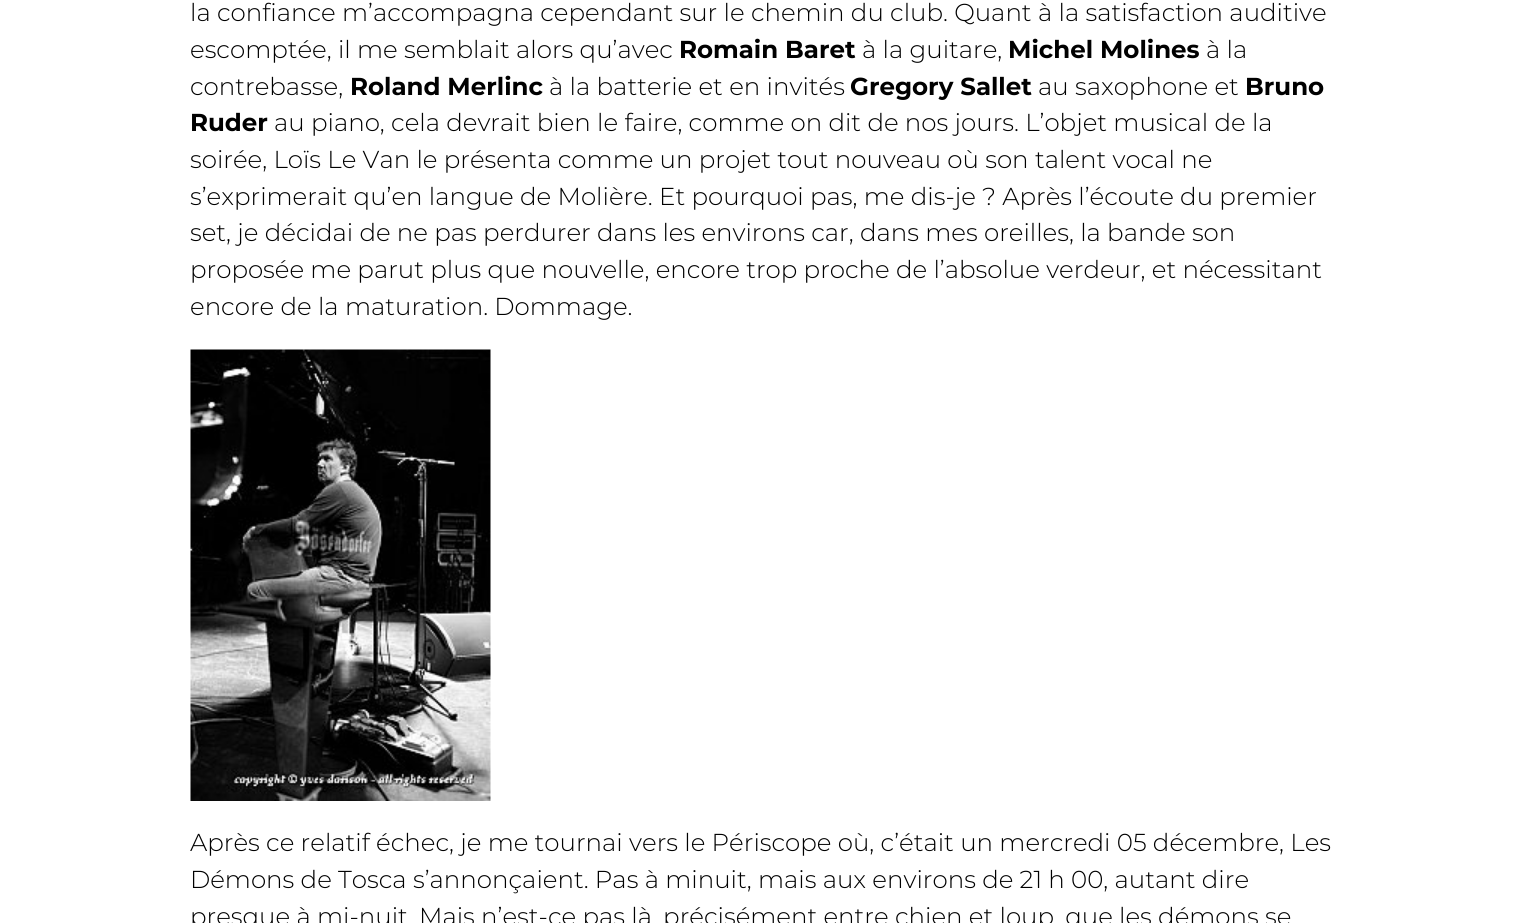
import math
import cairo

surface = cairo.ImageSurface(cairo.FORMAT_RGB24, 1536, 923)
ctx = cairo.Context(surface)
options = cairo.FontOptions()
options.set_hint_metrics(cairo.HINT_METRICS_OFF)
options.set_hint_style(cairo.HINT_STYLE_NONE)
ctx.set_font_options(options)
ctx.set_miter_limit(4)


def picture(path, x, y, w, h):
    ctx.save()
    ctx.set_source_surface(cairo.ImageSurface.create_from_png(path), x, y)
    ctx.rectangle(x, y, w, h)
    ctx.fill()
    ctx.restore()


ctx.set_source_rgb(1, 1, 1)
ctx.paint()
ctx.select_font_face("Montserrat Light")
ctx.set_font_size(24.5)
ctx.set_source_rgb(0, 0, 0)
ctx.move_to(190, 21)
ctx.show_text("la confiance m’accompagna cependant sur le chemin du club. Quant à la satisfaction auditive")
ctx.move_to(190, 58)
ctx.show_text("escomptée, il me semblait alors qu’avec")
ctx.select_font_face("Montserrat", cairo.FONT_SLANT_NORMAL, cairo.FONT_WEIGHT_BOLD)
ctx.move_to(679, 58)
ctx.show_text("Romain Baret")
ctx.select_font_face("Montserrat Light")
ctx.move_to(862, 58)
ctx.show_text("à la guitare,")
ctx.select_font_face("Montserrat", cairo.FONT_SLANT_NORMAL, cairo.FONT_WEIGHT_BOLD)
ctx.move_to(1008, 58)
ctx.show_text("Michel Molines")
ctx.select_font_face("Montserrat Light")
ctx.move_to(1206, 58)
ctx.show_text("à la")
ctx.move_to(190, 95)
ctx.show_text("contrebasse,")
ctx.select_font_face("Montserrat", cairo.FONT_SLANT_NORMAL, cairo.FONT_WEIGHT_BOLD)
ctx.move_to(350, 95)
ctx.show_text("Roland Merlinc")
ctx.select_font_face("Montserrat Light")
ctx.move_to(549, 95)
ctx.show_text("à la batterie et en invités")
ctx.select_font_face("Montserrat", cairo.FONT_SLANT_NORMAL, cairo.FONT_WEIGHT_BOLD)
ctx.move_to(850, 95)
ctx.show_text("Gregory Sallet")
ctx.select_font_face("Montserrat Light")
ctx.move_to(1038, 95)
ctx.show_text("au saxophone et")
ctx.select_font_face("Montserrat", cairo.FONT_SLANT_NORMAL, cairo.FONT_WEIGHT_BOLD)
ctx.move_to(1245, 95)
ctx.show_text("Bruno")
ctx.move_to(190, 131)
ctx.show_text("Ruder")
ctx.select_font_face("Montserrat Light")
ctx.move_to(274, 131)
ctx.show_text("au piano, cela devrait bien le faire, comme on dit de nos jours. L’objet musical de la")
ctx.move_to(190, 168)
ctx.show_text("soirée, Loïs Le Van le présenta comme un projet tout nouveau où son talent vocal ne")
ctx.move_to(190, 205)
ctx.show_text("s’exprimerait qu’en langue de Molière. Et pourquoi pas, me dis-je ? Après l’écoute du premier")
ctx.move_to(190, 241)
ctx.show_text("set, je décidai de ne pas perdurer dans les environs car, dans mes oreilles, la bande son")
ctx.move_to(190, 278)
ctx.show_text("proposée me parut plus que nouvelle, encore trop proche de l’absolue verdeur, et nécessitant")
ctx.move_to(190, 315)
ctx.show_text("encore de la maturation. Dommage.")
picture("img1.png", 190, 349, 301, 452)
ctx.move_to(190, 851)
ctx.show_text("Après ce relatif échec, je me tournai vers le Périscope où, c’était un mercredi 05 décembre, Les")
ctx.move_to(190, 888)
ctx.show_text("Démons de Tosca s’annonçaient. Pas à minuit, mais aux environs de 21 h 00, autant dire")
ctx.move_to(190, 925)
ctx.show_text("presque à mi-nuit. Mais n’est-ce pas là, précisément entre chien et loup, que les démons se")
surface.write_to_png("page.png")
